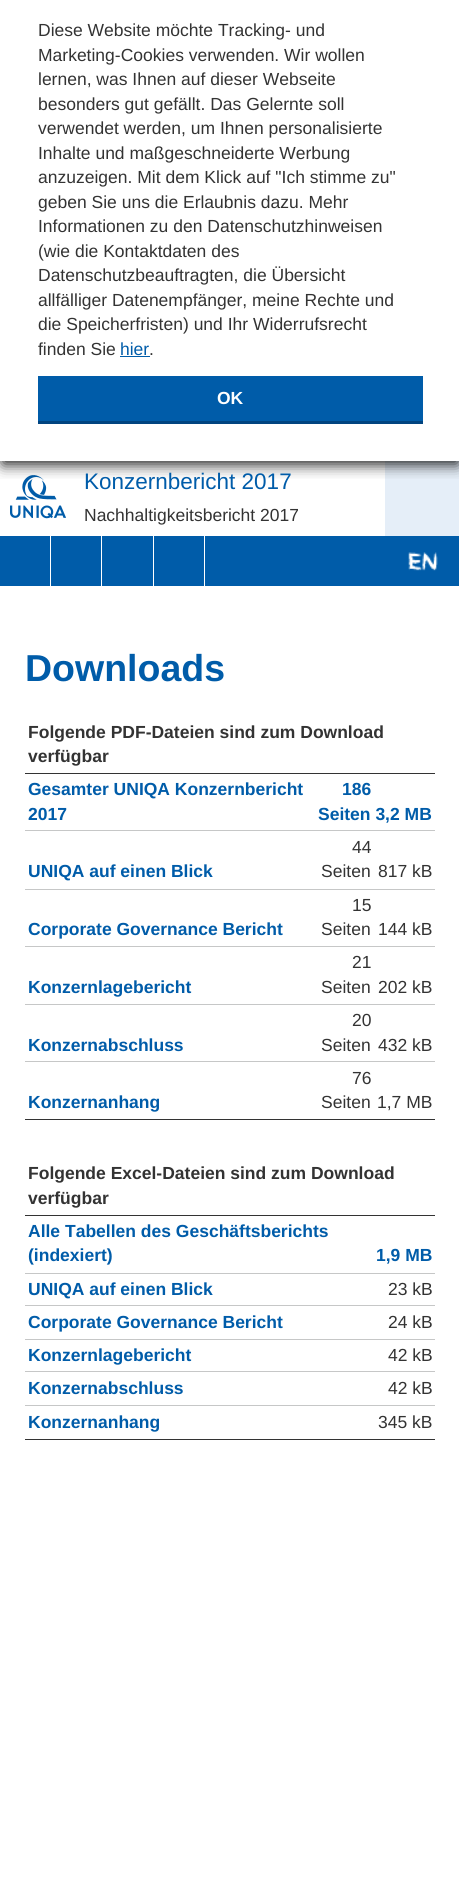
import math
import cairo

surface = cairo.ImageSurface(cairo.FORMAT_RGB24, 459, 1883)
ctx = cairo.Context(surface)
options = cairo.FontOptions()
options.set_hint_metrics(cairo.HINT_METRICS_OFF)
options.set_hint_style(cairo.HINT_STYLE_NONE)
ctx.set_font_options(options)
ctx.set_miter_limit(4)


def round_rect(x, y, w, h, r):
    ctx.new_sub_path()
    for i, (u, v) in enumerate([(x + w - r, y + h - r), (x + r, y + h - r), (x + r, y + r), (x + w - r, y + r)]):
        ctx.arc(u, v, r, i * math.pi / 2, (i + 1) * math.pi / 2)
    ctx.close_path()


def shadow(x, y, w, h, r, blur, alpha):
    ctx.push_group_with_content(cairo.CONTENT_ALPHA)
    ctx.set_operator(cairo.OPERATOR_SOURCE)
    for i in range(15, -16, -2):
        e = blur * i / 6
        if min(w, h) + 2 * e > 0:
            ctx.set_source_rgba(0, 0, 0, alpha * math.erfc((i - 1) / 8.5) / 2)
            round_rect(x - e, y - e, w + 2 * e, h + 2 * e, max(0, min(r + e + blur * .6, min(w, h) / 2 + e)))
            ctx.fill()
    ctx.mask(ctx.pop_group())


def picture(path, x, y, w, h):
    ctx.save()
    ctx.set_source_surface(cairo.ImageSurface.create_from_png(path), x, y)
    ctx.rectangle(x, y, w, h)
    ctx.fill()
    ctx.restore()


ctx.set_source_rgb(1, 1, 1)
ctx.paint()
picture("img1.png", 10, 475, 56, 44)
ctx.set_source_rgb(0.898, 0.933, 0.969)
ctx.rectangle(385, 461, 74, 75)
ctx.fill()
ctx.save()
ctx.rectangle(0, 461, 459, 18)
ctx.clip()
ctx.set_source_rgb(0.059, 0.059, 0.059)
shadow(3, 8, 455, 456, 0, 7.5, 1)
ctx.restore()
ctx.select_font_face("Liberation Sans")
ctx.set_font_size(17.5)
ctx.set_source_rgb(0.2, 0.2, 0.2)
ctx.move_to(38, 36)
ctx.show_text("Diese Website möchte Tracking- und")
ctx.move_to(38, 61)
ctx.show_text("Marketing-Cookies verwenden. Wir wollen")
ctx.move_to(38, 85)
ctx.show_text("lernen, was Ihnen auf dieser Webseite")
ctx.move_to(38, 110)
ctx.show_text("besonders gut gefällt. Das Gelernte soll")
ctx.move_to(38, 134)
ctx.show_text("verwendet werden, um Ihnen personalisierte")
ctx.move_to(38, 159)
ctx.show_text("Inhalte und maßgeschneiderte Werbung")
ctx.move_to(38, 183)
ctx.show_text("anzuzeigen. Mit dem Klick auf \"Ich stimme zu\"")
ctx.move_to(38, 208)
ctx.show_text("geben Sie uns die Erlaubnis dazu. Mehr")
ctx.move_to(38, 232)
ctx.show_text("Informationen zu den Datenschutzhinweisen")
ctx.move_to(38, 257)
ctx.show_text("(wie die Kontaktdaten des")
ctx.move_to(38, 281)
ctx.show_text("Datenschutzbeauftragten, die Übersicht")
ctx.move_to(38, 306)
ctx.show_text("allfälliger Datenempfänger, meine Rechte und")
ctx.move_to(38, 330)
ctx.show_text("die Speicherfristen) und Ihr Widerrufsrecht")
ctx.move_to(38, 355)
ctx.show_text("finden Sie")
ctx.set_source_rgb(0, 0.361, 0.663)
ctx.move_to(120, 355)
ctx.show_text("hier")
ctx.rectangle(120, 356, 30, 1)
ctx.fill()
ctx.set_source_rgb(0.2, 0.2, 0.2)
ctx.move_to(149, 355)
ctx.show_text(".")
ctx.set_source_rgb(0, 0.361, 0.663)
ctx.rectangle(38, 376, 385, 45)
ctx.fill()
ctx.set_source_rgb(0.004, 0.267, 0.502)
ctx.rectangle(38, 421, 385, 3)
ctx.fill()
ctx.select_font_face("Liberation Sans", cairo.FONT_SLANT_NORMAL, cairo.FONT_WEIGHT_BOLD)
ctx.set_source_rgb(1, 1, 1)
ctx.move_to(217, 404)
ctx.show_text("OK")
ctx.select_font_face("Liberation Sans")
ctx.set_font_size(22.5)
ctx.set_source_rgb(0, 0.361, 0.663)
ctx.move_to(84, 489)
ctx.show_text("Konzernbericht 2017")
ctx.set_font_size(17.5)
ctx.set_source_rgb(0.2, 0.2, 0.2)
ctx.move_to(84, 521)
ctx.show_text("Nachhaltigkeitsbericht 2017")
ctx.set_source_rgb(0, 0.361, 0.663)
ctx.rectangle(0, 536, 459, 50)
ctx.fill()
ctx.set_source_rgb(1, 1, 1)
ctx.rectangle(50, 536, 1, 50)
ctx.fill()
ctx.rectangle(101, 536, 1, 50)
ctx.fill()
ctx.rectangle(153, 536, 1, 50)
ctx.fill()
ctx.rectangle(204, 536, 1, 50)
ctx.fill()
picture("img2.png", 408, 552, 30, 19)
ctx.select_font_face("Liberation Sans", cairo.FONT_SLANT_NORMAL, cairo.FONT_WEIGHT_BOLD)
ctx.set_font_size(37.5)
ctx.set_source_rgb(0, 0.361, 0.663)
ctx.move_to(25, 681)
ctx.show_text("Downloads")
ctx.set_source_rgb(0.2, 0.2, 0.2)
ctx.rectangle(25, 773, 410, 1)
ctx.fill()
ctx.set_font_size(17.5)
ctx.move_to(28, 738)
ctx.show_text("Folgende PDF-Dateien sind zum Download")
ctx.move_to(28, 762)
ctx.show_text("verfügbar")
ctx.set_source_rgb(0.776, 0.78, 0.78)
ctx.rectangle(25, 830, 410, 1)
ctx.fill()
ctx.set_source_rgb(0, 0.361, 0.663)
ctx.move_to(28, 795)
ctx.show_text("Gesamter UNIQA Konzernbericht")
ctx.move_to(28, 820)
ctx.show_text("2017")
ctx.move_to(342, 795)
ctx.show_text("186")
ctx.move_to(318, 820)
ctx.show_text("Seiten 3,2 MB")
ctx.set_source_rgb(0.776, 0.78, 0.78)
ctx.rectangle(25, 889, 410, 1)
ctx.fill()
ctx.set_source_rgb(0, 0.361, 0.663)
ctx.move_to(28, 877)
ctx.show_text("UNIQA auf einen Blick")
ctx.select_font_face("Liberation Sans")
ctx.set_source_rgb(0.2, 0.2, 0.2)
ctx.move_to(352, 853)
ctx.show_text("44")
ctx.move_to(321, 877)
ctx.show_text("Seiten")
ctx.move_to(378, 877)
ctx.show_text("817 kB")
ctx.set_source_rgb(0.776, 0.78, 0.78)
ctx.rectangle(25, 946, 410, 1)
ctx.fill()
ctx.select_font_face("Liberation Sans", cairo.FONT_SLANT_NORMAL, cairo.FONT_WEIGHT_BOLD)
ctx.set_source_rgb(0, 0.361, 0.663)
ctx.move_to(28, 935)
ctx.show_text("Corporate Governance Bericht")
ctx.select_font_face("Liberation Sans")
ctx.set_source_rgb(0.2, 0.2, 0.2)
ctx.move_to(352, 911)
ctx.show_text("15")
ctx.move_to(321, 935)
ctx.show_text("Seiten")
ctx.move_to(378, 935)
ctx.show_text("144 kB")
ctx.set_source_rgb(0.776, 0.78, 0.78)
ctx.rectangle(25, 1004, 410, 1)
ctx.fill()
ctx.select_font_face("Liberation Sans", cairo.FONT_SLANT_NORMAL, cairo.FONT_WEIGHT_BOLD)
ctx.set_source_rgb(0, 0.361, 0.663)
ctx.move_to(28, 993)
ctx.show_text("Konzernlagebericht")
ctx.select_font_face("Liberation Sans")
ctx.set_source_rgb(0.2, 0.2, 0.2)
ctx.move_to(352, 968)
ctx.show_text("21")
ctx.move_to(321, 993)
ctx.show_text("Seiten")
ctx.move_to(378, 993)
ctx.show_text("202 kB")
ctx.set_source_rgb(0.776, 0.78, 0.78)
ctx.rectangle(25, 1061, 410, 1)
ctx.fill()
ctx.select_font_face("Liberation Sans", cairo.FONT_SLANT_NORMAL, cairo.FONT_WEIGHT_BOLD)
ctx.set_source_rgb(0, 0.361, 0.663)
ctx.move_to(28, 1051)
ctx.show_text("Konzernabschluss")
ctx.select_font_face("Liberation Sans")
ctx.set_source_rgb(0.2, 0.2, 0.2)
ctx.move_to(352, 1026)
ctx.show_text("20")
ctx.move_to(321, 1051)
ctx.show_text("Seiten")
ctx.move_to(378, 1051)
ctx.show_text("432 kB")
ctx.rectangle(25, 1119, 410, 1)
ctx.fill()
ctx.select_font_face("Liberation Sans", cairo.FONT_SLANT_NORMAL, cairo.FONT_WEIGHT_BOLD)
ctx.set_source_rgb(0, 0.361, 0.663)
ctx.move_to(28, 1108)
ctx.show_text("Konzernanhang")
ctx.select_font_face("Liberation Sans")
ctx.set_source_rgb(0.2, 0.2, 0.2)
ctx.move_to(352, 1084)
ctx.show_text("76")
ctx.move_to(321, 1108)
ctx.show_text("Seiten")
ctx.move_to(377, 1108)
ctx.show_text("1,7 MB")
ctx.rectangle(25, 1215, 410, 1)
ctx.fill()
ctx.select_font_face("Liberation Sans", cairo.FONT_SLANT_NORMAL, cairo.FONT_WEIGHT_BOLD)
ctx.move_to(28, 1179)
ctx.show_text("Folgende Excel-Dateien sind zum Download")
ctx.move_to(28, 1204)
ctx.show_text("verfügbar")
ctx.set_source_rgb(0.776, 0.78, 0.78)
ctx.rectangle(25, 1273, 410, 1)
ctx.fill()
ctx.set_source_rgb(0, 0.361, 0.663)
ctx.move_to(28, 1237)
ctx.show_text("Alle Tabellen des Geschäftsberichts")
ctx.move_to(28, 1261)
ctx.show_text("(indexiert)")
ctx.move_to(376, 1261)
ctx.show_text("1,9 MB")
ctx.set_source_rgb(0.776, 0.78, 0.78)
ctx.rectangle(25, 1305, 410, 1)
ctx.fill()
ctx.set_source_rgb(0, 0.361, 0.663)
ctx.move_to(28, 1295)
ctx.show_text("UNIQA auf einen Blick")
ctx.select_font_face("Liberation Sans")
ctx.set_source_rgb(0.2, 0.2, 0.2)
ctx.move_to(388, 1295)
ctx.show_text("23 kB")
ctx.set_source_rgb(0.776, 0.78, 0.78)
ctx.rectangle(25, 1339, 410, 1)
ctx.fill()
ctx.select_font_face("Liberation Sans", cairo.FONT_SLANT_NORMAL, cairo.FONT_WEIGHT_BOLD)
ctx.set_source_rgb(0, 0.361, 0.663)
ctx.move_to(28, 1328)
ctx.show_text("Corporate Governance Bericht")
ctx.select_font_face("Liberation Sans")
ctx.set_source_rgb(0.2, 0.2, 0.2)
ctx.move_to(388, 1328)
ctx.show_text("24 kB")
ctx.set_source_rgb(0.776, 0.78, 0.78)
ctx.rectangle(25, 1371, 410, 1)
ctx.fill()
ctx.select_font_face("Liberation Sans", cairo.FONT_SLANT_NORMAL, cairo.FONT_WEIGHT_BOLD)
ctx.set_source_rgb(0, 0.361, 0.663)
ctx.move_to(28, 1361)
ctx.show_text("Konzernlagebericht")
ctx.select_font_face("Liberation Sans")
ctx.set_source_rgb(0.2, 0.2, 0.2)
ctx.move_to(388, 1361)
ctx.show_text("42 kB")
ctx.set_source_rgb(0.776, 0.78, 0.78)
ctx.rectangle(25, 1405, 410, 1)
ctx.fill()
ctx.select_font_face("Liberation Sans", cairo.FONT_SLANT_NORMAL, cairo.FONT_WEIGHT_BOLD)
ctx.set_source_rgb(0, 0.361, 0.663)
ctx.move_to(28, 1394)
ctx.show_text("Konzernabschluss")
ctx.select_font_face("Liberation Sans")
ctx.set_source_rgb(0.2, 0.2, 0.2)
ctx.move_to(388, 1394)
ctx.show_text("42 kB")
ctx.rectangle(25, 1439, 410, 1)
ctx.fill()
ctx.select_font_face("Liberation Sans", cairo.FONT_SLANT_NORMAL, cairo.FONT_WEIGHT_BOLD)
ctx.set_source_rgb(0, 0.361, 0.663)
ctx.move_to(28, 1428)
ctx.show_text("Konzernanhang")
ctx.select_font_face("Liberation Sans")
ctx.set_source_rgb(0.2, 0.2, 0.2)
ctx.move_to(378, 1428)
ctx.show_text("345 kB")
surface.write_to_png("page.png")
